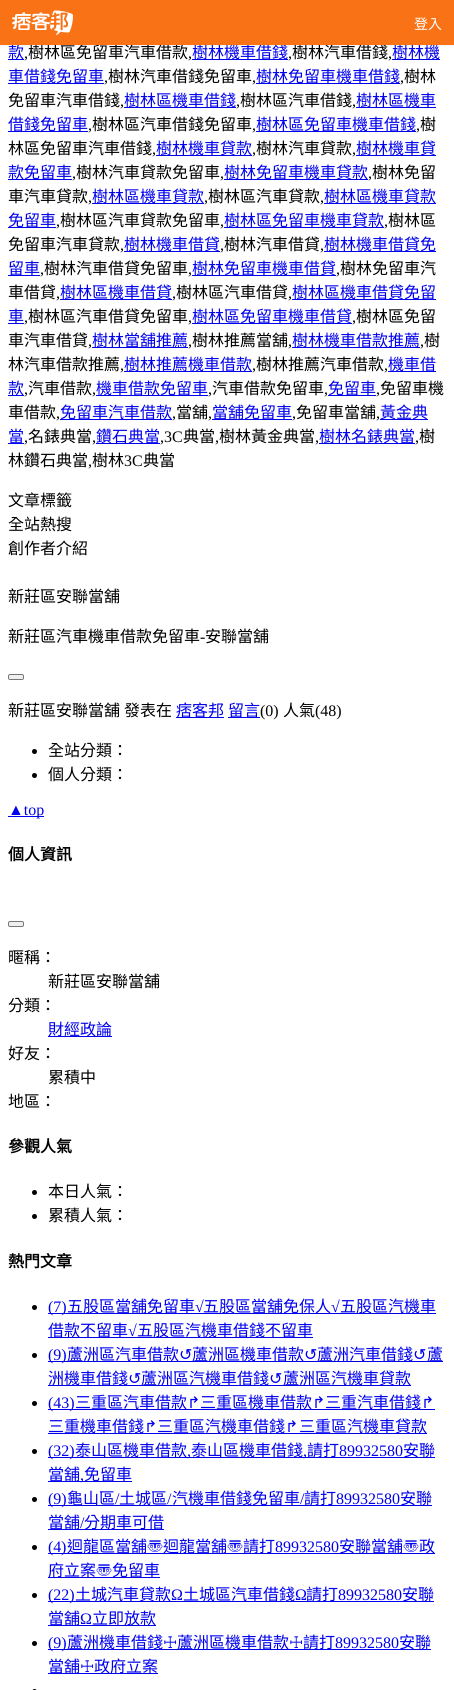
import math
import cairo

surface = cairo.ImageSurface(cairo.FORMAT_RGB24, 454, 1690)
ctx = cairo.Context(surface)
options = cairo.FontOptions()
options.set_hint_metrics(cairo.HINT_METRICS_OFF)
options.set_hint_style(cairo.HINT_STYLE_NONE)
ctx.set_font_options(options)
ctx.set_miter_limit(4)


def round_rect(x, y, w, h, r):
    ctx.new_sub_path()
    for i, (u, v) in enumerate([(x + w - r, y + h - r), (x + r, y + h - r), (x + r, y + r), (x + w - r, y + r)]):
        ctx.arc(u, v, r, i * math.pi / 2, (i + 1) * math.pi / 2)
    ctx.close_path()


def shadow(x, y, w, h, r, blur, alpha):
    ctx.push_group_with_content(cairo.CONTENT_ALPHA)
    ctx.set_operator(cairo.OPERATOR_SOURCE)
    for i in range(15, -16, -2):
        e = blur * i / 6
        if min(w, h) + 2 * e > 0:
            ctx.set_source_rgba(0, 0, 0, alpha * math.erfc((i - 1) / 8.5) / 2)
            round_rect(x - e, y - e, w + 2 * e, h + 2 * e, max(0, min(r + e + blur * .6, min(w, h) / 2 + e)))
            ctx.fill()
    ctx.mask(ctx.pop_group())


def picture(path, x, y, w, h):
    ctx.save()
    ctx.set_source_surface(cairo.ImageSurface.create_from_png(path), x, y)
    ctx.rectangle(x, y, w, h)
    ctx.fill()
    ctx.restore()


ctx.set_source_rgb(1, 1, 1)
ctx.paint()
ctx.set_source_rgb(0, 0, 0)
shadow(0, 1, 454, 45, 0, 1, 0.05)
ctx.set_source_rgb(0, 0, 0.933)
ctx.rectangle(8, 59, 16, 1)
ctx.fill()
ctx.select_font_face("Noto Sans CJK TC")
ctx.set_font_size(16)
ctx.move_to(8, 58)
ctx.show_text("款")
ctx.set_source_rgb(0, 0, 0)
ctx.move_to(28, 58)
ctx.show_text("樹林區免留車汽車借款")
ctx.set_source_rgb(0, 0, 0.933)
ctx.rectangle(192, 59, 96, 1)
ctx.fill()
ctx.move_to(192, 58)
ctx.show_text("樹林機車借錢")
ctx.set_source_rgb(0, 0, 0)
ctx.move_to(292, 58)
ctx.show_text("樹林汽車借錢")
ctx.set_source_rgb(0, 0, 0.933)
ctx.rectangle(392, 59, 48, 1)
ctx.fill()
ctx.move_to(392, 58)
ctx.show_text("樹林機")
ctx.set_source_rgb(0.976, 0.451, 0.086)
ctx.rectangle(0, 0, 454, 45)
ctx.fill()
picture("img1.png", 12, 10, 61, 25)
ctx.set_font_size(14)
ctx.set_source_rgb(1, 1, 1)
ctx.move_to(414, 29)
ctx.show_text("登入")
ctx.select_font_face("Liberation Serif")
ctx.set_font_size(16)
ctx.set_source_rgb(0, 0, 0)
ctx.move_to(24, 58)
ctx.show_text(",")
ctx.move_to(188, 58)
ctx.show_text(",")
ctx.move_to(288, 58)
ctx.show_text(",")
ctx.move_to(388, 58)
ctx.show_text(",")
ctx.set_source_rgb(0, 0, 0.933)
ctx.rectangle(8, 83, 96, 1)
ctx.fill()
ctx.select_font_face("Noto Sans CJK TC")
ctx.move_to(8, 82)
ctx.show_text("車借錢免留車")
ctx.select_font_face("Liberation Serif")
ctx.set_source_rgb(0, 0, 0)
ctx.move_to(104, 82)
ctx.show_text(",")
ctx.select_font_face("Noto Sans CJK TC")
ctx.move_to(108, 82)
ctx.show_text("樹林汽車借錢免留車")
ctx.select_font_face("Liberation Serif")
ctx.move_to(252, 82)
ctx.show_text(",")
ctx.set_source_rgb(0, 0, 0.933)
ctx.rectangle(256, 83, 144, 1)
ctx.fill()
ctx.select_font_face("Noto Sans CJK TC")
ctx.move_to(256, 82)
ctx.show_text("樹林免留車機車借錢")
ctx.select_font_face("Liberation Serif")
ctx.set_source_rgb(0, 0, 0)
ctx.move_to(400, 82)
ctx.show_text(",")
ctx.select_font_face("Noto Sans CJK TC")
ctx.move_to(404, 82)
ctx.show_text("樹林")
ctx.move_to(8, 106)
ctx.show_text("免留車汽車借錢")
ctx.select_font_face("Liberation Serif")
ctx.move_to(120, 106)
ctx.show_text(",")
ctx.set_source_rgb(0, 0, 0.933)
ctx.rectangle(124, 107, 112, 1)
ctx.fill()
ctx.select_font_face("Noto Sans CJK TC")
ctx.move_to(124, 106)
ctx.show_text("樹林區機車借錢")
ctx.select_font_face("Liberation Serif")
ctx.set_source_rgb(0, 0, 0)
ctx.move_to(236, 106)
ctx.show_text(",")
ctx.select_font_face("Noto Sans CJK TC")
ctx.move_to(240, 106)
ctx.show_text("樹林區汽車借錢")
ctx.select_font_face("Liberation Serif")
ctx.move_to(352, 106)
ctx.show_text(",")
ctx.set_source_rgb(0, 0, 0.933)
ctx.rectangle(356, 107, 80, 1)
ctx.fill()
ctx.select_font_face("Noto Sans CJK TC")
ctx.move_to(356, 106)
ctx.show_text("樹林區機車")
ctx.rectangle(8, 131, 80, 1)
ctx.fill()
ctx.move_to(8, 130)
ctx.show_text("借錢免留車")
ctx.select_font_face("Liberation Serif")
ctx.set_source_rgb(0, 0, 0)
ctx.move_to(88, 130)
ctx.show_text(",")
ctx.select_font_face("Noto Sans CJK TC")
ctx.move_to(92, 130)
ctx.show_text("樹林區汽車借錢免留車")
ctx.select_font_face("Liberation Serif")
ctx.move_to(252, 130)
ctx.show_text(",")
ctx.set_source_rgb(0, 0, 0.933)
ctx.rectangle(256, 131, 160, 1)
ctx.fill()
ctx.select_font_face("Noto Sans CJK TC")
ctx.move_to(256, 130)
ctx.show_text("樹林區免留車機車借錢")
ctx.select_font_face("Liberation Serif")
ctx.set_source_rgb(0, 0, 0)
ctx.move_to(416, 130)
ctx.show_text(",")
ctx.select_font_face("Noto Sans CJK TC")
ctx.move_to(420, 130)
ctx.show_text("樹")
ctx.move_to(8, 154)
ctx.show_text("林區免留車汽車借錢")
ctx.select_font_face("Liberation Serif")
ctx.move_to(152, 154)
ctx.show_text(",")
ctx.set_source_rgb(0, 0, 0.933)
ctx.rectangle(156, 155, 96, 1)
ctx.fill()
ctx.select_font_face("Noto Sans CJK TC")
ctx.move_to(156, 154)
ctx.show_text("樹林機車貸款")
ctx.select_font_face("Liberation Serif")
ctx.set_source_rgb(0, 0, 0)
ctx.move_to(252, 154)
ctx.show_text(",")
ctx.select_font_face("Noto Sans CJK TC")
ctx.move_to(256, 154)
ctx.show_text("樹林汽車貸款")
ctx.select_font_face("Liberation Serif")
ctx.move_to(352, 154)
ctx.show_text(",")
ctx.set_source_rgb(0, 0, 0.933)
ctx.rectangle(356, 155, 80, 1)
ctx.fill()
ctx.select_font_face("Noto Sans CJK TC")
ctx.move_to(356, 154)
ctx.show_text("樹林機車貸")
ctx.rectangle(8, 179, 64, 1)
ctx.fill()
ctx.move_to(8, 178)
ctx.show_text("款免留車")
ctx.select_font_face("Liberation Serif")
ctx.set_source_rgb(0, 0, 0)
ctx.move_to(72, 178)
ctx.show_text(",")
ctx.select_font_face("Noto Sans CJK TC")
ctx.move_to(76, 178)
ctx.show_text("樹林汽車貸款免留車")
ctx.select_font_face("Liberation Serif")
ctx.move_to(220, 178)
ctx.show_text(",")
ctx.set_source_rgb(0, 0, 0.933)
ctx.rectangle(224, 179, 144, 1)
ctx.fill()
ctx.select_font_face("Noto Sans CJK TC")
ctx.move_to(224, 178)
ctx.show_text("樹林免留車機車貸款")
ctx.select_font_face("Liberation Serif")
ctx.set_source_rgb(0, 0, 0)
ctx.move_to(368, 178)
ctx.show_text(",")
ctx.select_font_face("Noto Sans CJK TC")
ctx.move_to(372, 178)
ctx.show_text("樹林免留")
ctx.move_to(8, 202)
ctx.show_text("車汽車貸款")
ctx.select_font_face("Liberation Serif")
ctx.move_to(88, 202)
ctx.show_text(",")
ctx.set_source_rgb(0, 0, 0.933)
ctx.rectangle(92, 203, 112, 1)
ctx.fill()
ctx.select_font_face("Noto Sans CJK TC")
ctx.move_to(92, 202)
ctx.show_text("樹林區機車貸款")
ctx.select_font_face("Liberation Serif")
ctx.set_source_rgb(0, 0, 0)
ctx.move_to(204, 202)
ctx.show_text(",")
ctx.select_font_face("Noto Sans CJK TC")
ctx.move_to(208, 202)
ctx.show_text("樹林區汽車貸款")
ctx.select_font_face("Liberation Serif")
ctx.move_to(320, 202)
ctx.show_text(",")
ctx.set_source_rgb(0, 0, 0.933)
ctx.rectangle(324, 203, 112, 1)
ctx.fill()
ctx.select_font_face("Noto Sans CJK TC")
ctx.move_to(324, 202)
ctx.show_text("樹林區機車貸款")
ctx.rectangle(8, 227, 48, 1)
ctx.fill()
ctx.move_to(8, 226)
ctx.show_text("免留車")
ctx.select_font_face("Liberation Serif")
ctx.set_source_rgb(0, 0, 0)
ctx.move_to(56, 226)
ctx.show_text(",")
ctx.select_font_face("Noto Sans CJK TC")
ctx.move_to(60, 226)
ctx.show_text("樹林區汽車貸款免留車")
ctx.select_font_face("Liberation Serif")
ctx.move_to(220, 226)
ctx.show_text(",")
ctx.set_source_rgb(0, 0, 0.933)
ctx.rectangle(224, 227, 160, 1)
ctx.fill()
ctx.select_font_face("Noto Sans CJK TC")
ctx.move_to(224, 226)
ctx.show_text("樹林區免留車機車貸款")
ctx.select_font_face("Liberation Serif")
ctx.set_source_rgb(0, 0, 0)
ctx.move_to(384, 226)
ctx.show_text(",")
ctx.select_font_face("Noto Sans CJK TC")
ctx.move_to(388, 226)
ctx.show_text("樹林區")
ctx.move_to(8, 250)
ctx.show_text("免留車汽車貸款")
ctx.select_font_face("Liberation Serif")
ctx.move_to(120, 250)
ctx.show_text(",")
ctx.set_source_rgb(0, 0, 0.933)
ctx.rectangle(124, 251, 96, 1)
ctx.fill()
ctx.select_font_face("Noto Sans CJK TC")
ctx.move_to(124, 250)
ctx.show_text("樹林機車借貸")
ctx.select_font_face("Liberation Serif")
ctx.set_source_rgb(0, 0, 0)
ctx.move_to(220, 250)
ctx.show_text(",")
ctx.select_font_face("Noto Sans CJK TC")
ctx.move_to(224, 250)
ctx.show_text("樹林汽車借貸")
ctx.select_font_face("Liberation Serif")
ctx.move_to(320, 250)
ctx.show_text(",")
ctx.set_source_rgb(0, 0, 0.933)
ctx.rectangle(324, 251, 112, 1)
ctx.fill()
ctx.select_font_face("Noto Sans CJK TC")
ctx.move_to(324, 250)
ctx.show_text("樹林機車借貸免")
ctx.rectangle(8, 275, 32, 1)
ctx.fill()
ctx.move_to(8, 274)
ctx.show_text("留車")
ctx.select_font_face("Liberation Serif")
ctx.set_source_rgb(0, 0, 0)
ctx.move_to(40, 274)
ctx.show_text(",")
ctx.select_font_face("Noto Sans CJK TC")
ctx.move_to(44, 274)
ctx.show_text("樹林汽車借貸免留車")
ctx.select_font_face("Liberation Serif")
ctx.move_to(188, 274)
ctx.show_text(",")
ctx.set_source_rgb(0, 0, 0.933)
ctx.rectangle(192, 275, 144, 1)
ctx.fill()
ctx.select_font_face("Noto Sans CJK TC")
ctx.move_to(192, 274)
ctx.show_text("樹林免留車機車借貸")
ctx.select_font_face("Liberation Serif")
ctx.set_source_rgb(0, 0, 0)
ctx.move_to(336, 274)
ctx.show_text(",")
ctx.select_font_face("Noto Sans CJK TC")
ctx.move_to(340, 274)
ctx.show_text("樹林免留車汽")
ctx.move_to(8, 298)
ctx.show_text("車借貸")
ctx.select_font_face("Liberation Serif")
ctx.move_to(56, 298)
ctx.show_text(",")
ctx.set_source_rgb(0, 0, 0.933)
ctx.rectangle(60, 299, 112, 1)
ctx.fill()
ctx.select_font_face("Noto Sans CJK TC")
ctx.move_to(60, 298)
ctx.show_text("樹林區機車借貸")
ctx.select_font_face("Liberation Serif")
ctx.set_source_rgb(0, 0, 0)
ctx.move_to(172, 298)
ctx.show_text(",")
ctx.select_font_face("Noto Sans CJK TC")
ctx.move_to(176, 298)
ctx.show_text("樹林區汽車借貸")
ctx.select_font_face("Liberation Serif")
ctx.move_to(288, 298)
ctx.show_text(",")
ctx.set_source_rgb(0, 0, 0.933)
ctx.rectangle(292, 299, 144, 1)
ctx.fill()
ctx.select_font_face("Noto Sans CJK TC")
ctx.move_to(292, 298)
ctx.show_text("樹林區機車借貸免留")
ctx.rectangle(8, 323, 16, 1)
ctx.fill()
ctx.move_to(8, 322)
ctx.show_text("車")
ctx.select_font_face("Liberation Serif")
ctx.set_source_rgb(0, 0, 0)
ctx.move_to(24, 322)
ctx.show_text(",")
ctx.select_font_face("Noto Sans CJK TC")
ctx.move_to(28, 322)
ctx.show_text("樹林區汽車借貸免留車")
ctx.select_font_face("Liberation Serif")
ctx.move_to(188, 322)
ctx.show_text(",")
ctx.set_source_rgb(0, 0, 0.933)
ctx.rectangle(192, 323, 160, 1)
ctx.fill()
ctx.select_font_face("Noto Sans CJK TC")
ctx.move_to(192, 322)
ctx.show_text("樹林區免留車機車借貸")
ctx.select_font_face("Liberation Serif")
ctx.set_source_rgb(0, 0, 0)
ctx.move_to(352, 322)
ctx.show_text(",")
ctx.select_font_face("Noto Sans CJK TC")
ctx.move_to(356, 322)
ctx.show_text("樹林區免留")
ctx.move_to(8, 346)
ctx.show_text("車汽車借貸")
ctx.select_font_face("Liberation Serif")
ctx.move_to(88, 346)
ctx.show_text(",")
ctx.set_source_rgb(0, 0, 0.933)
ctx.rectangle(92, 347, 96, 1)
ctx.fill()
ctx.select_font_face("Noto Sans CJK TC")
ctx.move_to(92, 346)
ctx.show_text("樹林當舖推薦")
ctx.select_font_face("Liberation Serif")
ctx.set_source_rgb(0, 0, 0)
ctx.move_to(188, 346)
ctx.show_text(",")
ctx.select_font_face("Noto Sans CJK TC")
ctx.move_to(192, 346)
ctx.show_text("樹林推薦當舖")
ctx.select_font_face("Liberation Serif")
ctx.move_to(288, 346)
ctx.show_text(",")
ctx.set_source_rgb(0, 0, 0.933)
ctx.rectangle(292, 347, 128, 1)
ctx.fill()
ctx.select_font_face("Noto Sans CJK TC")
ctx.move_to(292, 346)
ctx.show_text("樹林機車借款推薦")
ctx.select_font_face("Liberation Serif")
ctx.set_source_rgb(0, 0, 0)
ctx.move_to(420, 346)
ctx.show_text(",")
ctx.select_font_face("Noto Sans CJK TC")
ctx.move_to(424, 346)
ctx.show_text("樹")
ctx.move_to(8, 370)
ctx.show_text("林汽車借款推薦")
ctx.select_font_face("Liberation Serif")
ctx.move_to(120, 370)
ctx.show_text(",")
ctx.set_source_rgb(0, 0, 0.933)
ctx.rectangle(124, 371, 128, 1)
ctx.fill()
ctx.select_font_face("Noto Sans CJK TC")
ctx.move_to(124, 370)
ctx.show_text("樹林推薦機車借款")
ctx.select_font_face("Liberation Serif")
ctx.set_source_rgb(0, 0, 0)
ctx.move_to(252, 370)
ctx.show_text(",")
ctx.select_font_face("Noto Sans CJK TC")
ctx.move_to(256, 370)
ctx.show_text("樹林推薦汽車借款")
ctx.select_font_face("Liberation Serif")
ctx.move_to(384, 370)
ctx.show_text(",")
ctx.set_source_rgb(0, 0, 0.933)
ctx.rectangle(388, 371, 48, 1)
ctx.fill()
ctx.select_font_face("Noto Sans CJK TC")
ctx.move_to(388, 370)
ctx.show_text("機車借")
ctx.rectangle(8, 395, 16, 1)
ctx.fill()
ctx.move_to(8, 394)
ctx.show_text("款")
ctx.select_font_face("Liberation Serif")
ctx.set_source_rgb(0, 0, 0)
ctx.move_to(24, 394)
ctx.show_text(",")
ctx.select_font_face("Noto Sans CJK TC")
ctx.move_to(28, 394)
ctx.show_text("汽車借款")
ctx.select_font_face("Liberation Serif")
ctx.move_to(92, 394)
ctx.show_text(",")
ctx.set_source_rgb(0, 0, 0.933)
ctx.rectangle(96, 395, 112, 1)
ctx.fill()
ctx.select_font_face("Noto Sans CJK TC")
ctx.move_to(96, 394)
ctx.show_text("機車借款免留車")
ctx.select_font_face("Liberation Serif")
ctx.set_source_rgb(0, 0, 0)
ctx.move_to(208, 394)
ctx.show_text(",")
ctx.select_font_face("Noto Sans CJK TC")
ctx.move_to(212, 394)
ctx.show_text("汽車借款免留車")
ctx.select_font_face("Liberation Serif")
ctx.move_to(324, 394)
ctx.show_text(",")
ctx.set_source_rgb(0, 0, 0.933)
ctx.rectangle(328, 395, 48, 1)
ctx.fill()
ctx.select_font_face("Noto Sans CJK TC")
ctx.move_to(328, 394)
ctx.show_text("免留車")
ctx.select_font_face("Liberation Serif")
ctx.set_source_rgb(0, 0, 0)
ctx.move_to(376, 394)
ctx.show_text(",")
ctx.select_font_face("Noto Sans CJK TC")
ctx.move_to(380, 394)
ctx.show_text("免留車機")
ctx.move_to(8, 418)
ctx.show_text("車借款")
ctx.select_font_face("Liberation Serif")
ctx.move_to(56, 418)
ctx.show_text(",")
ctx.set_source_rgb(0, 0, 0.933)
ctx.rectangle(60, 419, 112, 1)
ctx.fill()
ctx.select_font_face("Noto Sans CJK TC")
ctx.move_to(60, 418)
ctx.show_text("免留車汽車借款")
ctx.select_font_face("Liberation Serif")
ctx.set_source_rgb(0, 0, 0)
ctx.move_to(172, 418)
ctx.show_text(",")
ctx.select_font_face("Noto Sans CJK TC")
ctx.move_to(176, 418)
ctx.show_text("當舖")
ctx.select_font_face("Liberation Serif")
ctx.move_to(208, 418)
ctx.show_text(",")
ctx.set_source_rgb(0, 0, 0.933)
ctx.rectangle(212, 419, 80, 1)
ctx.fill()
ctx.select_font_face("Noto Sans CJK TC")
ctx.move_to(212, 418)
ctx.show_text("當舖免留車")
ctx.select_font_face("Liberation Serif")
ctx.set_source_rgb(0, 0, 0)
ctx.move_to(292, 418)
ctx.show_text(",")
ctx.select_font_face("Noto Sans CJK TC")
ctx.move_to(296, 418)
ctx.show_text("免留車當舖")
ctx.select_font_face("Liberation Serif")
ctx.move_to(376, 418)
ctx.show_text(",")
ctx.set_source_rgb(0, 0, 0.933)
ctx.rectangle(380, 419, 48, 1)
ctx.fill()
ctx.select_font_face("Noto Sans CJK TC")
ctx.move_to(380, 418)
ctx.show_text("黃金典")
ctx.rectangle(8, 443, 16, 1)
ctx.fill()
ctx.move_to(8, 442)
ctx.show_text("當")
ctx.select_font_face("Liberation Serif")
ctx.set_source_rgb(0, 0, 0)
ctx.move_to(24, 442)
ctx.show_text(",")
ctx.select_font_face("Noto Sans CJK TC")
ctx.move_to(28, 442)
ctx.show_text("名錶典當")
ctx.select_font_face("Liberation Serif")
ctx.move_to(92, 442)
ctx.show_text(",")
ctx.set_source_rgb(0, 0, 0.933)
ctx.rectangle(96, 443, 64, 1)
ctx.fill()
ctx.select_font_face("Noto Sans CJK TC")
ctx.move_to(96, 442)
ctx.show_text("鑽石典當")
ctx.select_font_face("Liberation Serif")
ctx.set_source_rgb(0, 0, 0)
ctx.move_to(160, 442)
ctx.show_text(",3C")
ctx.select_font_face("Noto Sans CJK TC")
ctx.move_to(183, 442)
ctx.show_text("典當")
ctx.select_font_face("Liberation Serif")
ctx.move_to(215, 442)
ctx.show_text(",")
ctx.select_font_face("Noto Sans CJK TC")
ctx.move_to(219, 442)
ctx.show_text("樹林黃金典當")
ctx.select_font_face("Liberation Serif")
ctx.move_to(315, 442)
ctx.show_text(",")
ctx.set_source_rgb(0, 0, 0.933)
ctx.rectangle(319, 443, 96, 1)
ctx.fill()
ctx.select_font_face("Noto Sans CJK TC")
ctx.move_to(319, 442)
ctx.show_text("樹林名錶典當")
ctx.select_font_face("Liberation Serif")
ctx.set_source_rgb(0, 0, 0)
ctx.move_to(415, 442)
ctx.show_text(",")
ctx.select_font_face("Noto Sans CJK TC")
ctx.move_to(419, 442)
ctx.show_text("樹")
ctx.move_to(8, 466)
ctx.show_text("林鑽石典當")
ctx.select_font_face("Liberation Serif")
ctx.move_to(88, 466)
ctx.show_text(",")
ctx.select_font_face("Noto Sans CJK TC")
ctx.move_to(92, 466)
ctx.show_text("樹林")
ctx.select_font_face("Liberation Serif")
ctx.move_to(124, 466)
ctx.show_text("3C")
ctx.select_font_face("Noto Sans CJK TC")
ctx.move_to(143, 466)
ctx.show_text("典當")
ctx.move_to(8, 506)
ctx.show_text("文章標籤")
ctx.move_to(8, 530)
ctx.show_text("全站熱搜")
ctx.move_to(8, 554)
ctx.show_text("創作者介紹")
ctx.move_to(8, 602)
ctx.show_text("新莊區安聯當舖")
ctx.move_to(8, 642)
ctx.show_text("新莊區汽車機車借款免留車")
ctx.select_font_face("Liberation Serif")
ctx.move_to(200, 642)
ctx.show_text("-")
ctx.select_font_face("Noto Sans CJK TC")
ctx.move_to(205, 642)
ctx.show_text("安聯當舖")
ctx.set_source_rgb(0.937, 0.937, 0.937)
round_rect(8.5, 674.5, 15, 5, 1.5)
ctx.fill_preserve()
ctx.set_source_rgb(0.463, 0.463, 0.463)
ctx.set_line_width(1)
ctx.stroke()
ctx.set_source_rgb(0, 0, 0)
ctx.move_to(8, 716)
ctx.show_text("新莊區安聯當舖")
ctx.move_to(124, 716)
ctx.show_text("發表在")
ctx.set_source_rgb(0, 0, 0.933)
ctx.rectangle(176, 717, 48, 1)
ctx.fill()
ctx.move_to(176, 716)
ctx.show_text("痞客邦")
ctx.rectangle(228, 717, 32, 1)
ctx.fill()
ctx.move_to(228, 716)
ctx.show_text("留言")
ctx.select_font_face("Liberation Serif")
ctx.set_source_rgb(0, 0, 0)
ctx.move_to(260, 716)
ctx.show_text("(0)")
ctx.select_font_face("Noto Sans CJK TC")
ctx.move_to(283, 716)
ctx.show_text("人氣")
ctx.select_font_face("Liberation Serif")
ctx.move_to(315, 716)
ctx.show_text("(48)")
ctx.new_path()
ctx.arc(34.5, 751.5, 2.5, 0, 2 * math.pi)
ctx.fill()
ctx.select_font_face("Noto Sans CJK TC")
ctx.move_to(48, 756)
ctx.show_text("全站分類：")
ctx.new_path()
ctx.arc(34.5, 775.5, 2.5, 0, 2 * math.pi)
ctx.fill()
ctx.move_to(48, 780)
ctx.show_text("個人分類：")
ctx.set_source_rgb(0, 0, 0.933)
ctx.rectangle(8, 816, 36, 1)
ctx.fill()
ctx.select_font_face("Liberation Serif")
ctx.move_to(8, 815)
ctx.show_text("▲top")
ctx.select_font_face("Noto Sans CJK TC", cairo.FONT_SLANT_NORMAL, cairo.FONT_WEIGHT_BOLD)
ctx.set_source_rgb(0, 0, 0)
ctx.move_to(8, 860)
ctx.show_text("個人資訊")
ctx.set_source_rgb(0.937, 0.937, 0.937)
round_rect(8.5, 921.5, 15, 5, 1.5)
ctx.fill_preserve()
ctx.set_source_rgb(0.463, 0.463, 0.463)
ctx.stroke()
ctx.select_font_face("Noto Sans CJK TC")
ctx.set_source_rgb(0, 0, 0)
ctx.move_to(8, 963)
ctx.show_text("暱稱：")
ctx.move_to(48, 987)
ctx.show_text("新莊區安聯當舖")
ctx.move_to(8, 1011)
ctx.show_text("分類：")
ctx.set_source_rgb(0, 0, 0.933)
ctx.rectangle(48, 1036, 64, 1)
ctx.fill()
ctx.move_to(48, 1035)
ctx.show_text("財經政論")
ctx.set_source_rgb(0, 0, 0)
ctx.move_to(8, 1059)
ctx.show_text("好友：")
ctx.move_to(48, 1083)
ctx.show_text("累積中")
ctx.move_to(8, 1107)
ctx.show_text("地區：")
ctx.select_font_face("Noto Sans CJK TC", cairo.FONT_SLANT_NORMAL, cairo.FONT_WEIGHT_BOLD)
ctx.move_to(8, 1152)
ctx.show_text("參觀人氣")
ctx.new_path()
ctx.arc(34.5, 1192.5, 2.5, 0, 2 * math.pi)
ctx.fill()
ctx.select_font_face("Noto Sans CJK TC")
ctx.move_to(48, 1197)
ctx.show_text("本日人氣：")
ctx.new_path()
ctx.arc(34.5, 1216.5, 2.5, 0, 2 * math.pi)
ctx.fill()
ctx.move_to(48, 1221)
ctx.show_text("累積人氣：")
ctx.select_font_face("Noto Sans CJK TC", cairo.FONT_SLANT_NORMAL, cairo.FONT_WEIGHT_BOLD)
ctx.move_to(8, 1267)
ctx.show_text("熱門文章")
ctx.new_path()
ctx.arc(34.5, 1307.5, 2.5, 0, 2 * math.pi)
ctx.fill()
ctx.set_source_rgb(0, 0, 0.933)
ctx.rectangle(48, 1313, 388, 1)
ctx.fill()
ctx.select_font_face("Liberation Serif")
ctx.move_to(48, 1312)
ctx.show_text("(7)")
ctx.select_font_face("Noto Sans CJK TC")
ctx.move_to(67, 1312)
ctx.show_text("五股區當舖免留車")
ctx.select_font_face("Liberation Serif")
ctx.move_to(195, 1312)
ctx.show_text("√")
ctx.select_font_face("Noto Sans CJK TC")
ctx.move_to(203, 1312)
ctx.show_text("五股區當舖免保人")
ctx.select_font_face("Liberation Serif")
ctx.move_to(331, 1312)
ctx.show_text("√")
ctx.select_font_face("Noto Sans CJK TC")
ctx.move_to(340, 1312)
ctx.show_text("五股區汽機車")
ctx.rectangle(48, 1337, 265, 1)
ctx.fill()
ctx.move_to(48, 1336)
ctx.show_text("借款不留車")
ctx.select_font_face("Liberation Serif")
ctx.move_to(128, 1336)
ctx.show_text("√")
ctx.select_font_face("Noto Sans CJK TC")
ctx.move_to(137, 1336)
ctx.show_text("五股區汽機車借錢不留車")
ctx.set_source_rgb(0, 0, 0)
ctx.new_path()
ctx.arc(34.5, 1355.5, 2.5, 0, 2 * math.pi)
ctx.fill()
ctx.set_source_rgb(0, 0, 0.933)
ctx.rectangle(48, 1361, 395, 1)
ctx.fill()
ctx.select_font_face("Liberation Serif")
ctx.move_to(48, 1360)
ctx.show_text("(9)")
ctx.select_font_face("Noto Sans CJK TC")
ctx.move_to(67, 1360)
ctx.show_text("蘆洲區汽車借款")
ctx.select_font_face("DejaVu Sans")
ctx.move_to(179, 1360)
ctx.show_text("↺")
ctx.select_font_face("Noto Sans CJK TC")
ctx.move_to(192, 1360)
ctx.show_text("蘆洲區機車借款")
ctx.select_font_face("DejaVu Sans")
ctx.move_to(304, 1360)
ctx.show_text("↺")
ctx.select_font_face("Noto Sans CJK TC")
ctx.move_to(317, 1360)
ctx.show_text("蘆洲汽車借錢")
ctx.select_font_face("DejaVu Sans")
ctx.move_to(413, 1360)
ctx.show_text("↺")
ctx.select_font_face("Noto Sans CJK TC")
ctx.move_to(427, 1360)
ctx.show_text("蘆")
ctx.rectangle(48, 1385, 363, 1)
ctx.fill()
ctx.move_to(48, 1384)
ctx.show_text("洲機車借錢")
ctx.select_font_face("DejaVu Sans")
ctx.move_to(128, 1384)
ctx.show_text("↺")
ctx.select_font_face("Noto Sans CJK TC")
ctx.move_to(141, 1384)
ctx.show_text("蘆洲區汽機車借錢")
ctx.select_font_face("DejaVu Sans")
ctx.move_to(269, 1384)
ctx.show_text("↺")
ctx.select_font_face("Noto Sans CJK TC")
ctx.move_to(283, 1384)
ctx.show_text("蘆洲區汽機車貸款")
ctx.set_source_rgb(0, 0, 0)
ctx.new_path()
ctx.arc(34.5, 1403.5, 2.5, 0, 2 * math.pi)
ctx.fill()
ctx.set_source_rgb(0, 0, 0.933)
ctx.rectangle(48, 1409, 387, 1)
ctx.fill()
ctx.select_font_face("Liberation Serif")
ctx.move_to(48, 1408)
ctx.show_text("(43)")
ctx.select_font_face("Noto Sans CJK TC")
ctx.move_to(75, 1408)
ctx.show_text("三重區汽車借款")
ctx.select_font_face("DejaVu Sans")
ctx.move_to(187, 1408)
ctx.show_text("↱")
ctx.select_font_face("Noto Sans CJK TC")
ctx.move_to(200, 1408)
ctx.show_text("三重區機車借款")
ctx.select_font_face("DejaVu Sans")
ctx.move_to(312, 1408)
ctx.show_text("↱")
ctx.select_font_face("Noto Sans CJK TC")
ctx.move_to(325, 1408)
ctx.show_text("三重汽車借錢")
ctx.select_font_face("DejaVu Sans")
ctx.move_to(421, 1408)
ctx.show_text("↱")
ctx.rectangle(48, 1433, 379, 1)
ctx.fill()
ctx.select_font_face("Noto Sans CJK TC")
ctx.move_to(48, 1432)
ctx.show_text("三重機車借錢")
ctx.select_font_face("DejaVu Sans")
ctx.move_to(144, 1432)
ctx.show_text("↱")
ctx.select_font_face("Noto Sans CJK TC")
ctx.move_to(157, 1432)
ctx.show_text("三重區汽機車借錢")
ctx.select_font_face("DejaVu Sans")
ctx.move_to(285, 1432)
ctx.show_text("↱")
ctx.select_font_face("Noto Sans CJK TC")
ctx.move_to(299, 1432)
ctx.show_text("三重區汽機車貸款")
ctx.set_source_rgb(0, 0, 0)
ctx.new_path()
ctx.arc(34.5, 1451.5, 2.5, 0, 2 * math.pi)
ctx.fill()
ctx.set_source_rgb(0, 0, 0.933)
ctx.rectangle(48, 1457, 387, 1)
ctx.fill()
ctx.select_font_face("Liberation Serif")
ctx.move_to(48, 1456)
ctx.show_text("(32)")
ctx.select_font_face("Noto Sans CJK TC")
ctx.move_to(75, 1456)
ctx.show_text("泰山區機車借款")
ctx.move_to(191, 1456)
ctx.show_text("泰山區機車借錢")
ctx.move_to(307, 1456)
ctx.show_text("請打")
ctx.select_font_face("Liberation Serif")
ctx.move_to(339, 1456)
ctx.show_text("89932580")
ctx.select_font_face("Noto Sans CJK TC")
ctx.move_to(403, 1456)
ctx.show_text("安聯")
ctx.select_font_face("Liberation Serif")
ctx.move_to(187, 1456)
ctx.show_text(",")
ctx.move_to(303, 1456)
ctx.show_text(",")
ctx.rectangle(48, 1481, 84, 1)
ctx.fill()
ctx.select_font_face("Noto Sans CJK TC")
ctx.move_to(48, 1480)
ctx.show_text("當舖")
ctx.select_font_face("Liberation Serif")
ctx.move_to(80, 1480)
ctx.show_text(",")
ctx.select_font_face("Noto Sans CJK TC")
ctx.move_to(84, 1480)
ctx.show_text("免留車")
ctx.set_source_rgb(0, 0, 0)
ctx.new_path()
ctx.arc(34.5, 1499.5, 2.5, 0, 2 * math.pi)
ctx.fill()
ctx.set_source_rgb(0, 0, 0.933)
ctx.rectangle(48, 1505, 384, 1)
ctx.fill()
ctx.select_font_face("Liberation Serif")
ctx.move_to(48, 1504)
ctx.show_text("(9)")
ctx.select_font_face("Noto Sans CJK TC")
ctx.move_to(67, 1504)
ctx.show_text("龜山區")
ctx.select_font_face("Liberation Serif")
ctx.move_to(115, 1504)
ctx.show_text("/")
ctx.select_font_face("Noto Sans CJK TC")
ctx.move_to(119, 1504)
ctx.show_text("土城區")
ctx.select_font_face("Liberation Serif")
ctx.move_to(167, 1504)
ctx.show_text("/")
ctx.select_font_face("Noto Sans CJK TC")
ctx.move_to(172, 1504)
ctx.show_text("汽機車借錢免留車")
ctx.select_font_face("Liberation Serif")
ctx.move_to(300, 1504)
ctx.show_text("/")
ctx.select_font_face("Noto Sans CJK TC")
ctx.move_to(304, 1504)
ctx.show_text("請打")
ctx.select_font_face("Liberation Serif")
ctx.move_to(336, 1504)
ctx.show_text("89932580")
ctx.select_font_face("Noto Sans CJK TC")
ctx.move_to(400, 1504)
ctx.show_text("安聯")
ctx.rectangle(48, 1529, 116, 1)
ctx.fill()
ctx.move_to(48, 1528)
ctx.show_text("當舖")
ctx.select_font_face("Liberation Serif")
ctx.move_to(80, 1528)
ctx.show_text("/")
ctx.select_font_face("Noto Sans CJK TC")
ctx.move_to(84, 1528)
ctx.show_text("分期車可借")
ctx.set_source_rgb(0, 0, 0)
ctx.new_path()
ctx.arc(34.5, 1547.5, 2.5, 0, 2 * math.pi)
ctx.fill()
ctx.set_source_rgb(0, 0, 0.933)
ctx.rectangle(48, 1553, 13, 1)
ctx.fill()
ctx.select_font_face("Liberation Serif")
ctx.move_to(48, 1552)
ctx.show_text("(4")
ctx.rectangle(61, 1553, 374, 1)
ctx.fill()
ctx.move_to(61, 1552)
ctx.show_text(")")
ctx.select_font_face("Noto Sans CJK TC")
ctx.move_to(67, 1552)
ctx.show_text("迴龍區當舖〠迴龍當舖〠請打")
ctx.select_font_face("Liberation Serif")
ctx.move_to(275, 1552)
ctx.show_text("89932580")
ctx.select_font_face("Noto Sans CJK TC")
ctx.move_to(339, 1552)
ctx.show_text("安聯當舖〠政")
ctx.rectangle(48, 1577, 112, 1)
ctx.fill()
ctx.move_to(48, 1576)
ctx.show_text("府立案〠免留車")
ctx.set_source_rgb(0, 0, 0)
ctx.new_path()
ctx.arc(34.5, 1595.5, 2.5, 0, 2 * math.pi)
ctx.fill()
ctx.set_source_rgb(0, 0, 0.933)
ctx.rectangle(48, 1601, 386, 1)
ctx.fill()
ctx.select_font_face("Liberation Serif")
ctx.move_to(48, 1600)
ctx.show_text("(22)")
ctx.select_font_face("Noto Sans CJK TC")
ctx.move_to(75, 1600)
ctx.show_text("土城汽車貸款")
ctx.select_font_face("Liberation Serif")
ctx.move_to(171, 1600)
ctx.show_text("Ω")
ctx.select_font_face("Noto Sans CJK TC")
ctx.move_to(183, 1600)
ctx.show_text("土城區汽車借錢")
ctx.select_font_face("Liberation Serif")
ctx.move_to(295, 1600)
ctx.show_text("Ω")
ctx.select_font_face("Noto Sans CJK TC")
ctx.move_to(306, 1600)
ctx.show_text("請打")
ctx.select_font_face("Liberation Serif")
ctx.move_to(338, 1600)
ctx.show_text("89932580")
ctx.select_font_face("Noto Sans CJK TC")
ctx.move_to(402, 1600)
ctx.show_text("安聯")
ctx.rectangle(48, 1625, 108, 1)
ctx.fill()
ctx.move_to(48, 1624)
ctx.show_text("當舖")
ctx.select_font_face("Liberation Serif")
ctx.move_to(80, 1624)
ctx.show_text("Ω")
ctx.select_font_face("Noto Sans CJK TC")
ctx.move_to(92, 1624)
ctx.show_text("立即放款")
ctx.set_source_rgb(0, 0, 0)
ctx.new_path()
ctx.arc(34.5, 1643.5, 2.5, 0, 2 * math.pi)
ctx.fill()
ctx.set_source_rgb(0, 0, 0.933)
ctx.rectangle(48, 1649, 383, 1)
ctx.fill()
ctx.select_font_face("Liberation Serif")
ctx.move_to(48, 1648)
ctx.show_text("(9)")
ctx.select_font_face("Noto Sans CJK TC")
ctx.move_to(67, 1648)
ctx.show_text("蘆洲機車借錢")
ctx.select_font_face("DejaVu Sans")
ctx.move_to(163, 1648)
ctx.show_text("☩")
ctx.select_font_face("Noto Sans CJK TC")
ctx.move_to(177, 1648)
ctx.show_text("蘆洲區機車借款")
ctx.select_font_face("DejaVu Sans")
ctx.move_to(289, 1648)
ctx.show_text("☩")
ctx.select_font_face("Noto Sans CJK TC")
ctx.move_to(303, 1648)
ctx.show_text("請打")
ctx.select_font_face("Liberation Serif")
ctx.move_to(335, 1648)
ctx.show_text("89932580")
ctx.select_font_face("Noto Sans CJK TC")
ctx.move_to(399, 1648)
ctx.show_text("安聯")
ctx.rectangle(48, 1673, 110, 1)
ctx.fill()
ctx.move_to(48, 1672)
ctx.show_text("當舖")
ctx.select_font_face("DejaVu Sans")
ctx.move_to(80, 1672)
ctx.show_text("☩")
ctx.select_font_face("Noto Sans CJK TC")
ctx.move_to(94, 1672)
ctx.show_text("政府立案")
ctx.set_source_rgb(0, 0, 0)
round_rect(32, 1689, 5, 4, 2.5)
ctx.fill()
surface.write_to_png("page.png")
